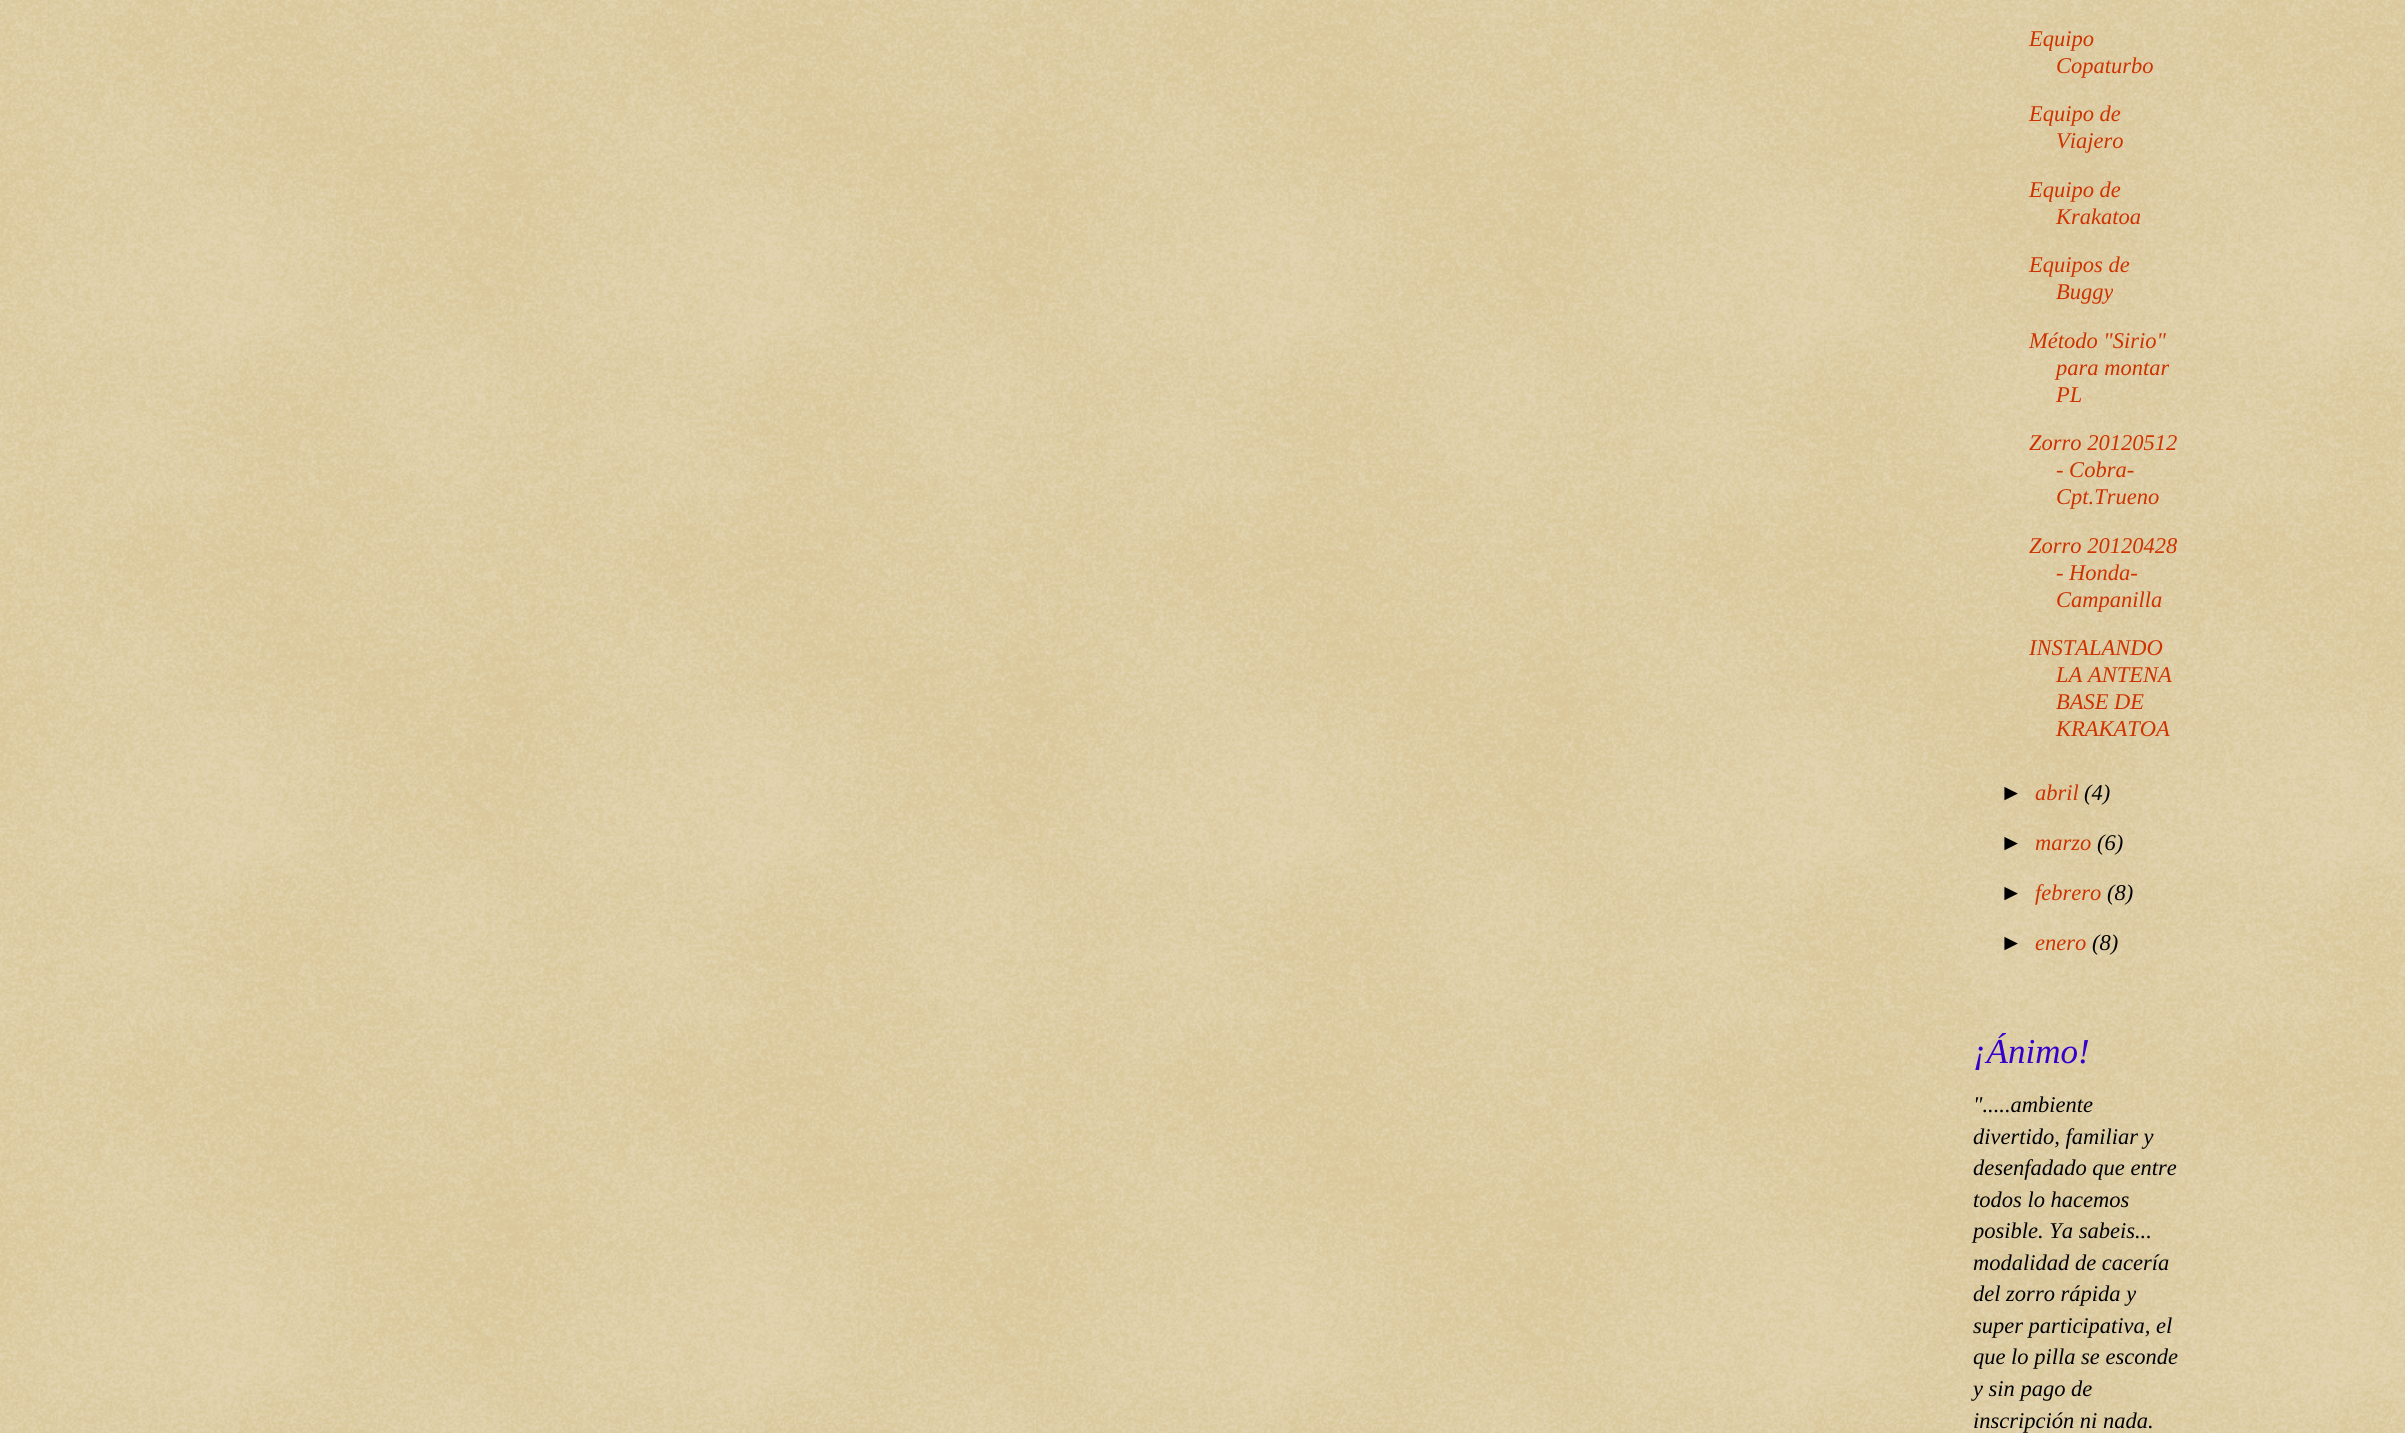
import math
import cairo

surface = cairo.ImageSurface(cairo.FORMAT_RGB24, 2405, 1433)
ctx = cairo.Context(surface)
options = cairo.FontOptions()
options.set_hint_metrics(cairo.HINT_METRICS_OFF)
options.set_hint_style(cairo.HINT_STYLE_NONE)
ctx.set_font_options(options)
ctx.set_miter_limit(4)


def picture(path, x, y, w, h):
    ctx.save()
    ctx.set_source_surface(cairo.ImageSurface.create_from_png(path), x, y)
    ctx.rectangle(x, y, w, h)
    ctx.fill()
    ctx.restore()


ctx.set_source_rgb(0.753, 0.631, 0.329)
ctx.paint()
picture("img1.png", 0, 0, 2405, 1433)
ctx.select_font_face("Liberation Serif", cairo.FONT_SLANT_ITALIC)
ctx.set_font_size(22.5)
ctx.set_source_rgb(0.8, 0.2, 0)
ctx.move_to(2029, 46)
ctx.show_text("Equipo")
ctx.move_to(2056, 73)
ctx.show_text("Copaturbo")
ctx.move_to(2029, 121)
ctx.show_text("Equipo de")
ctx.move_to(2056, 148)
ctx.show_text("Viajero")
ctx.move_to(2029, 197)
ctx.show_text("Equipo de")
ctx.move_to(2056, 224)
ctx.show_text("Krakatoa")
ctx.move_to(2029, 272)
ctx.show_text("Equipos de")
ctx.move_to(2056, 299)
ctx.show_text("Buggy")
ctx.move_to(2029, 348)
ctx.show_text("Método \"Sirio\"")
ctx.move_to(2056, 375)
ctx.show_text("para montar")
ctx.move_to(2056, 402)
ctx.show_text("PL")
ctx.move_to(2029, 450)
ctx.show_text("Zorro 20120512")
ctx.move_to(2056, 477)
ctx.show_text("- Cobra-")
ctx.move_to(2056, 504)
ctx.show_text("Cpt.Trueno")
ctx.move_to(2029, 553)
ctx.show_text("Zorro 20120428")
ctx.move_to(2056, 580)
ctx.show_text("- Honda-")
ctx.move_to(2056, 607)
ctx.show_text("Campanilla")
ctx.move_to(2029, 655)
ctx.show_text("INSTALANDO")
ctx.move_to(2056, 682)
ctx.show_text("LA ANTENA")
ctx.move_to(2056, 709)
ctx.show_text("BASE DE")
ctx.move_to(2056, 736)
ctx.show_text("KRAKATOA")
ctx.select_font_face("Liberation Sans", cairo.FONT_SLANT_ITALIC)
ctx.set_source_rgb(0, 0, 0)
ctx.move_to(2000, 800)
ctx.show_text("►")
ctx.select_font_face("Liberation Serif", cairo.FONT_SLANT_ITALIC)
ctx.set_source_rgb(0.8, 0.2, 0)
ctx.move_to(2035, 800)
ctx.show_text("abril")
ctx.set_source_rgb(0, 0, 0)
ctx.move_to(2084, 800)
ctx.show_text("(4)")
ctx.select_font_face("Liberation Sans", cairo.FONT_SLANT_ITALIC)
ctx.move_to(2000, 850)
ctx.show_text("►")
ctx.select_font_face("Liberation Serif", cairo.FONT_SLANT_ITALIC)
ctx.set_source_rgb(0.8, 0.2, 0)
ctx.move_to(2035, 850)
ctx.show_text("marzo")
ctx.set_source_rgb(0, 0, 0)
ctx.move_to(2097, 850)
ctx.show_text("(6)")
ctx.select_font_face("Liberation Sans", cairo.FONT_SLANT_ITALIC)
ctx.move_to(2000, 900)
ctx.show_text("►")
ctx.select_font_face("Liberation Serif", cairo.FONT_SLANT_ITALIC)
ctx.set_source_rgb(0.8, 0.2, 0)
ctx.move_to(2035, 900)
ctx.show_text("febrero")
ctx.set_source_rgb(0, 0, 0)
ctx.move_to(2107, 900)
ctx.show_text("(8)")
ctx.select_font_face("Liberation Sans", cairo.FONT_SLANT_ITALIC)
ctx.move_to(2000, 950)
ctx.show_text("►")
ctx.select_font_face("Liberation Serif", cairo.FONT_SLANT_ITALIC)
ctx.set_source_rgb(0.8, 0.2, 0)
ctx.move_to(2035, 950)
ctx.show_text("enero")
ctx.set_source_rgb(0, 0, 0)
ctx.move_to(2092, 950)
ctx.show_text("(8)")
ctx.set_font_size(35)
ctx.set_source_rgb(0.2, 0, 0.8)
ctx.move_to(1973, 1063)
ctx.show_text("¡Ánimo!")
ctx.set_font_size(22.5)
ctx.set_source_rgb(0, 0, 0)
ctx.move_to(1973, 1112)
ctx.show_text("\".....ambiente")
ctx.move_to(1973, 1144)
ctx.show_text("divertido, familiar y")
ctx.move_to(1973, 1175)
ctx.show_text("desenfadado que entre")
ctx.move_to(1973, 1207)
ctx.show_text("todos lo hacemos")
ctx.move_to(1973, 1238)
ctx.show_text("posible. Ya sabeis...")
ctx.move_to(1973, 1270)
ctx.show_text("modalidad de cacería")
ctx.move_to(1973, 1301)
ctx.show_text("del zorro rápida y")
ctx.move_to(1973, 1333)
ctx.show_text("super participativa, el")
ctx.move_to(1973, 1364)
ctx.show_text("que lo pilla se esconde")
ctx.move_to(1973, 1396)
ctx.show_text("y sin pago de")
ctx.move_to(1973, 1428)
ctx.show_text("inscripción ni nada.")
surface.write_to_png("page.png")
